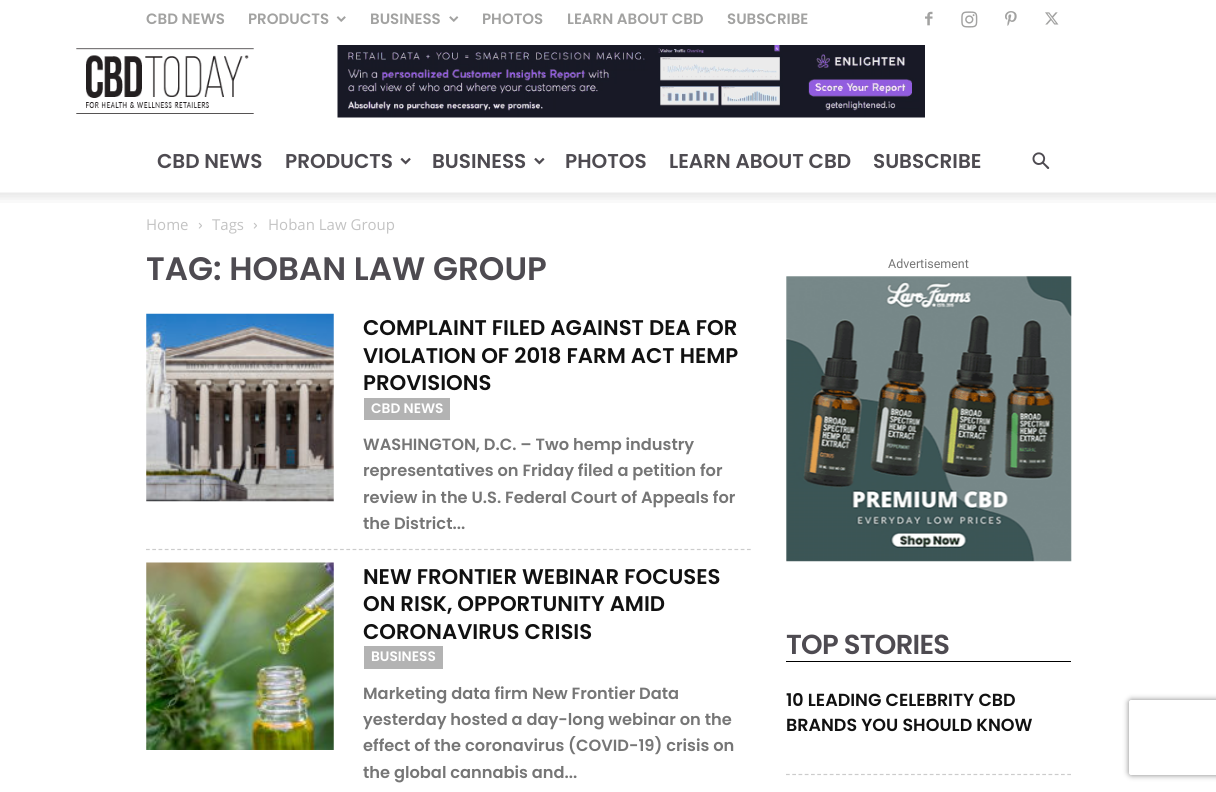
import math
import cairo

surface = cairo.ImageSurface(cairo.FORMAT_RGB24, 1216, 792)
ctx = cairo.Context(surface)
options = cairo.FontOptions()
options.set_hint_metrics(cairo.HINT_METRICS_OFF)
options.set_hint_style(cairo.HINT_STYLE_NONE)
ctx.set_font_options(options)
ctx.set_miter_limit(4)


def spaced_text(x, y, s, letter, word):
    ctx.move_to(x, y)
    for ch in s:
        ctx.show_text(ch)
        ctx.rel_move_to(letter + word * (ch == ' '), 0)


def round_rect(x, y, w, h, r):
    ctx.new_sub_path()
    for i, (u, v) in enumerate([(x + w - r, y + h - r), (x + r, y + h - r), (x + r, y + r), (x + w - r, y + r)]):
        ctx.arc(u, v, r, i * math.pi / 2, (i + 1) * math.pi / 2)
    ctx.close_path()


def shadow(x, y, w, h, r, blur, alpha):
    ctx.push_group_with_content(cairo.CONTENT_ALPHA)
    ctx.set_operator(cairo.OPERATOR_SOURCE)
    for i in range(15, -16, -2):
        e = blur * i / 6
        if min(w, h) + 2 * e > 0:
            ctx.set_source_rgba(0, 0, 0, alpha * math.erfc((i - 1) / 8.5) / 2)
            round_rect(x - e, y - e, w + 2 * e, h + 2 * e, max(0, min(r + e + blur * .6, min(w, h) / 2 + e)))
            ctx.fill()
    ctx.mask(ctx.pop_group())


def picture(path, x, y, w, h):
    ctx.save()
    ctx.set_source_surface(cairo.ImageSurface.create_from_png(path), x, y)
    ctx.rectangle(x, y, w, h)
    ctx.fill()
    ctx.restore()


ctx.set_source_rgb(1, 1, 1)
ctx.paint()
ctx.select_font_face("Poppins SemiBold")
ctx.set_font_size(15)
ctx.set_source_rgb(0.635, 0.635, 0.631)
ctx.move_to(146, 24)
ctx.show_text("CBD NEWS")
ctx.move_to(248, 24)
ctx.show_text("PRODUCTS")
picture("img1.png", 336, 16, 10, 6)
ctx.move_to(370, 24)
ctx.show_text("BUSINESS")
picture("img2.png", 449, 16, 10, 6)
ctx.move_to(482, 24)
ctx.show_text("PHOTOS")
ctx.move_to(567, 24)
ctx.show_text("LEARN ABOUT CBD")
ctx.move_to(727, 24)
ctx.show_text("SUBSCRIBE")
picture("img3.png", 925, 11, 8, 15)
picture("img4.png", 961, 11, 17, 17)
picture("img5.png", 1005, 11, 12, 15)
picture("img6.png", 1045, 12, 14, 13)
picture("img7.png", 76, 48, 178, 66)
picture("img8.png", 337, 45, 588, 73)
ctx.set_font_size(20)
ctx.set_source_rgb(0.306, 0.294, 0.318)
ctx.move_to(157, 168)
ctx.show_text("CBD NEWS")
ctx.move_to(285, 168)
ctx.show_text("PRODUCTS")
picture("img9.png", 400, 157, 11, 8)
ctx.move_to(432, 168)
ctx.show_text("BUSINESS")
picture("img10.png", 534, 157, 11, 8)
ctx.move_to(565, 168)
ctx.show_text("PHOTOS")
ctx.move_to(669, 168)
ctx.show_text("LEARN ABOUT CBD")
ctx.move_to(873, 168)
ctx.show_text("SUBSCRIBE")
picture("img11.png", 1032, 152, 18, 17)
picture("img12.png", 0, 192, 1216, 11)
ctx.select_font_face("Open Sans")
ctx.set_font_size(15)
ctx.set_source_rgb(0.765, 0.765, 0.765)
ctx.move_to(146, 230)
ctx.show_text("Home")
picture("img13.png", 198, 222, 4, 7)
ctx.move_to(212, 230)
ctx.show_text("Tags")
picture("img13.png", 253, 222, 4, 7)
ctx.move_to(268, 230)
ctx.show_text("Hoban Law Group")
ctx.select_font_face("Poppins SemiBold")
ctx.set_font_size(32.5)
ctx.set_source_rgb(0.306, 0.294, 0.318)
ctx.move_to(146, 280)
ctx.show_text("TAG: HOBAN LAW GROUP")
ctx.new_path()
ctx.move_to(146, 549.5)
ctx.line_to(751, 549.5)
ctx.set_source_rgb(0.8, 0.8, 0.8)
ctx.set_line_width(1.2)
ctx.set_dash([3.75, 2.51])
ctx.stroke()
picture("img14.png", 146, 313, 188, 189)
ctx.set_font_size(21.25)
ctx.set_source_rgb(0.067, 0.067, 0.067)
ctx.move_to(363, 335)
ctx.show_text("COMPLAINT FILED AGAINST DEA FOR")
ctx.move_to(363, 363)
ctx.show_text("VIOLATION OF 2018 FARM ACT HEMP")
ctx.move_to(363, 390)
ctx.show_text("PROVISIONS")
ctx.set_source_rgb(0.702, 0.702, 0.702)
ctx.rectangle(364, 398, 86, 22)
ctx.fill()
ctx.set_font_size(13.75)
ctx.set_source_rgb(1, 1, 1)
ctx.move_to(371, 413)
ctx.show_text("CBD NEWS")
ctx.set_font_size(16.25)
ctx.set_source_rgb(0.463, 0.463, 0.463)
ctx.move_to(363, 450)
ctx.show_text("WASHINGTON, D.C. – Two hemp industry")
ctx.move_to(363, 476)
ctx.show_text("representatives on Friday filed a petition for")
ctx.move_to(363, 503)
ctx.show_text("review in the U.S. Federal Court of Appeals for")
ctx.move_to(363, 529)
ctx.show_text("the District...")
picture("img15.png", 146, 562, 188, 188)
ctx.set_font_size(21.25)
ctx.set_source_rgb(0.067, 0.067, 0.067)
ctx.move_to(363, 584)
ctx.show_text("NEW FRONTIER WEBINAR FOCUSES")
ctx.move_to(363, 611)
ctx.show_text("ON RISK, OPPORTUNITY AMID")
ctx.move_to(363, 639)
ctx.show_text("CORONAVIRUS CRISIS")
ctx.set_source_rgb(0.702, 0.702, 0.702)
ctx.rectangle(364, 646, 79, 23)
ctx.fill()
ctx.set_font_size(13.75)
ctx.set_source_rgb(1, 1, 1)
ctx.move_to(371, 661)
ctx.show_text("BUSINESS")
ctx.set_font_size(16.25)
ctx.set_source_rgb(0.463, 0.463, 0.463)
ctx.move_to(363, 699)
ctx.show_text("Marketing data firm New Frontier Data")
ctx.move_to(363, 725)
ctx.show_text("yesterday hosted a day-long webinar on the")
ctx.move_to(363, 751)
ctx.show_text("effect of the coronavirus (COVID-19) crisis on")
ctx.move_to(363, 778)
ctx.show_text("the global cannabis and...")
ctx.select_font_face("Roboto")
ctx.set_font_size(12.5)
ctx.move_to(888, 268)
ctx.show_text("Advertisement")
picture("img16.png", 786, 276, 286, 286)
ctx.set_source_rgb(0, 0, 0)
ctx.rectangle(786, 661, 285, 1)
ctx.fill()
ctx.select_font_face("Poppins SemiBold")
ctx.set_font_size(27.5)
ctx.set_source_rgb(0.306, 0.294, 0.318)
spaced_text(786, 654, "TOP STORIES", -0.75, 0)
ctx.new_path()
ctx.move_to(786, 774.5)
ctx.line_to(1071, 774.5)
ctx.set_source_rgb(0.8, 0.8, 0.8)
ctx.set_dash([3.75, 2.5])
ctx.stroke()
ctx.set_font_size(17.5)
ctx.set_source_rgb(0.067, 0.067, 0.067)
ctx.move_to(786, 706)
ctx.show_text("10 LEADING CELEBRITY CBD")
ctx.move_to(786, 731)
ctx.show_text("BRANDS YOU SHOULD KNOW")
ctx.save()
ctx.set_fill_rule(cairo.FILL_RULE_EVEN_ODD)
ctx.new_path()
ctx.move_to(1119, 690)
ctx.line_to(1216, 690)
ctx.line_to(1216, 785)
ctx.line_to(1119, 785)
ctx.close_path()
ctx.move_to(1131.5, 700)
ctx.line_to(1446.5, 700)
ctx.curve_to(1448, 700, 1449, 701, 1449, 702.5)
ctx.line_to(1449, 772.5)
ctx.curve_to(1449, 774, 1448, 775, 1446.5, 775)
ctx.line_to(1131.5, 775)
ctx.curve_to(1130, 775, 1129, 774, 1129, 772.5)
ctx.line_to(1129, 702.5)
ctx.curve_to(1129, 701, 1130, 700, 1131.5, 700)
ctx.close_path()
ctx.clip()
ctx.set_source_rgb(0.502, 0.502, 0.502)
shadow(1129, 700, 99, 75, 2.5, 3, 1)
ctx.restore()
surface.write_to_png("page.png")
